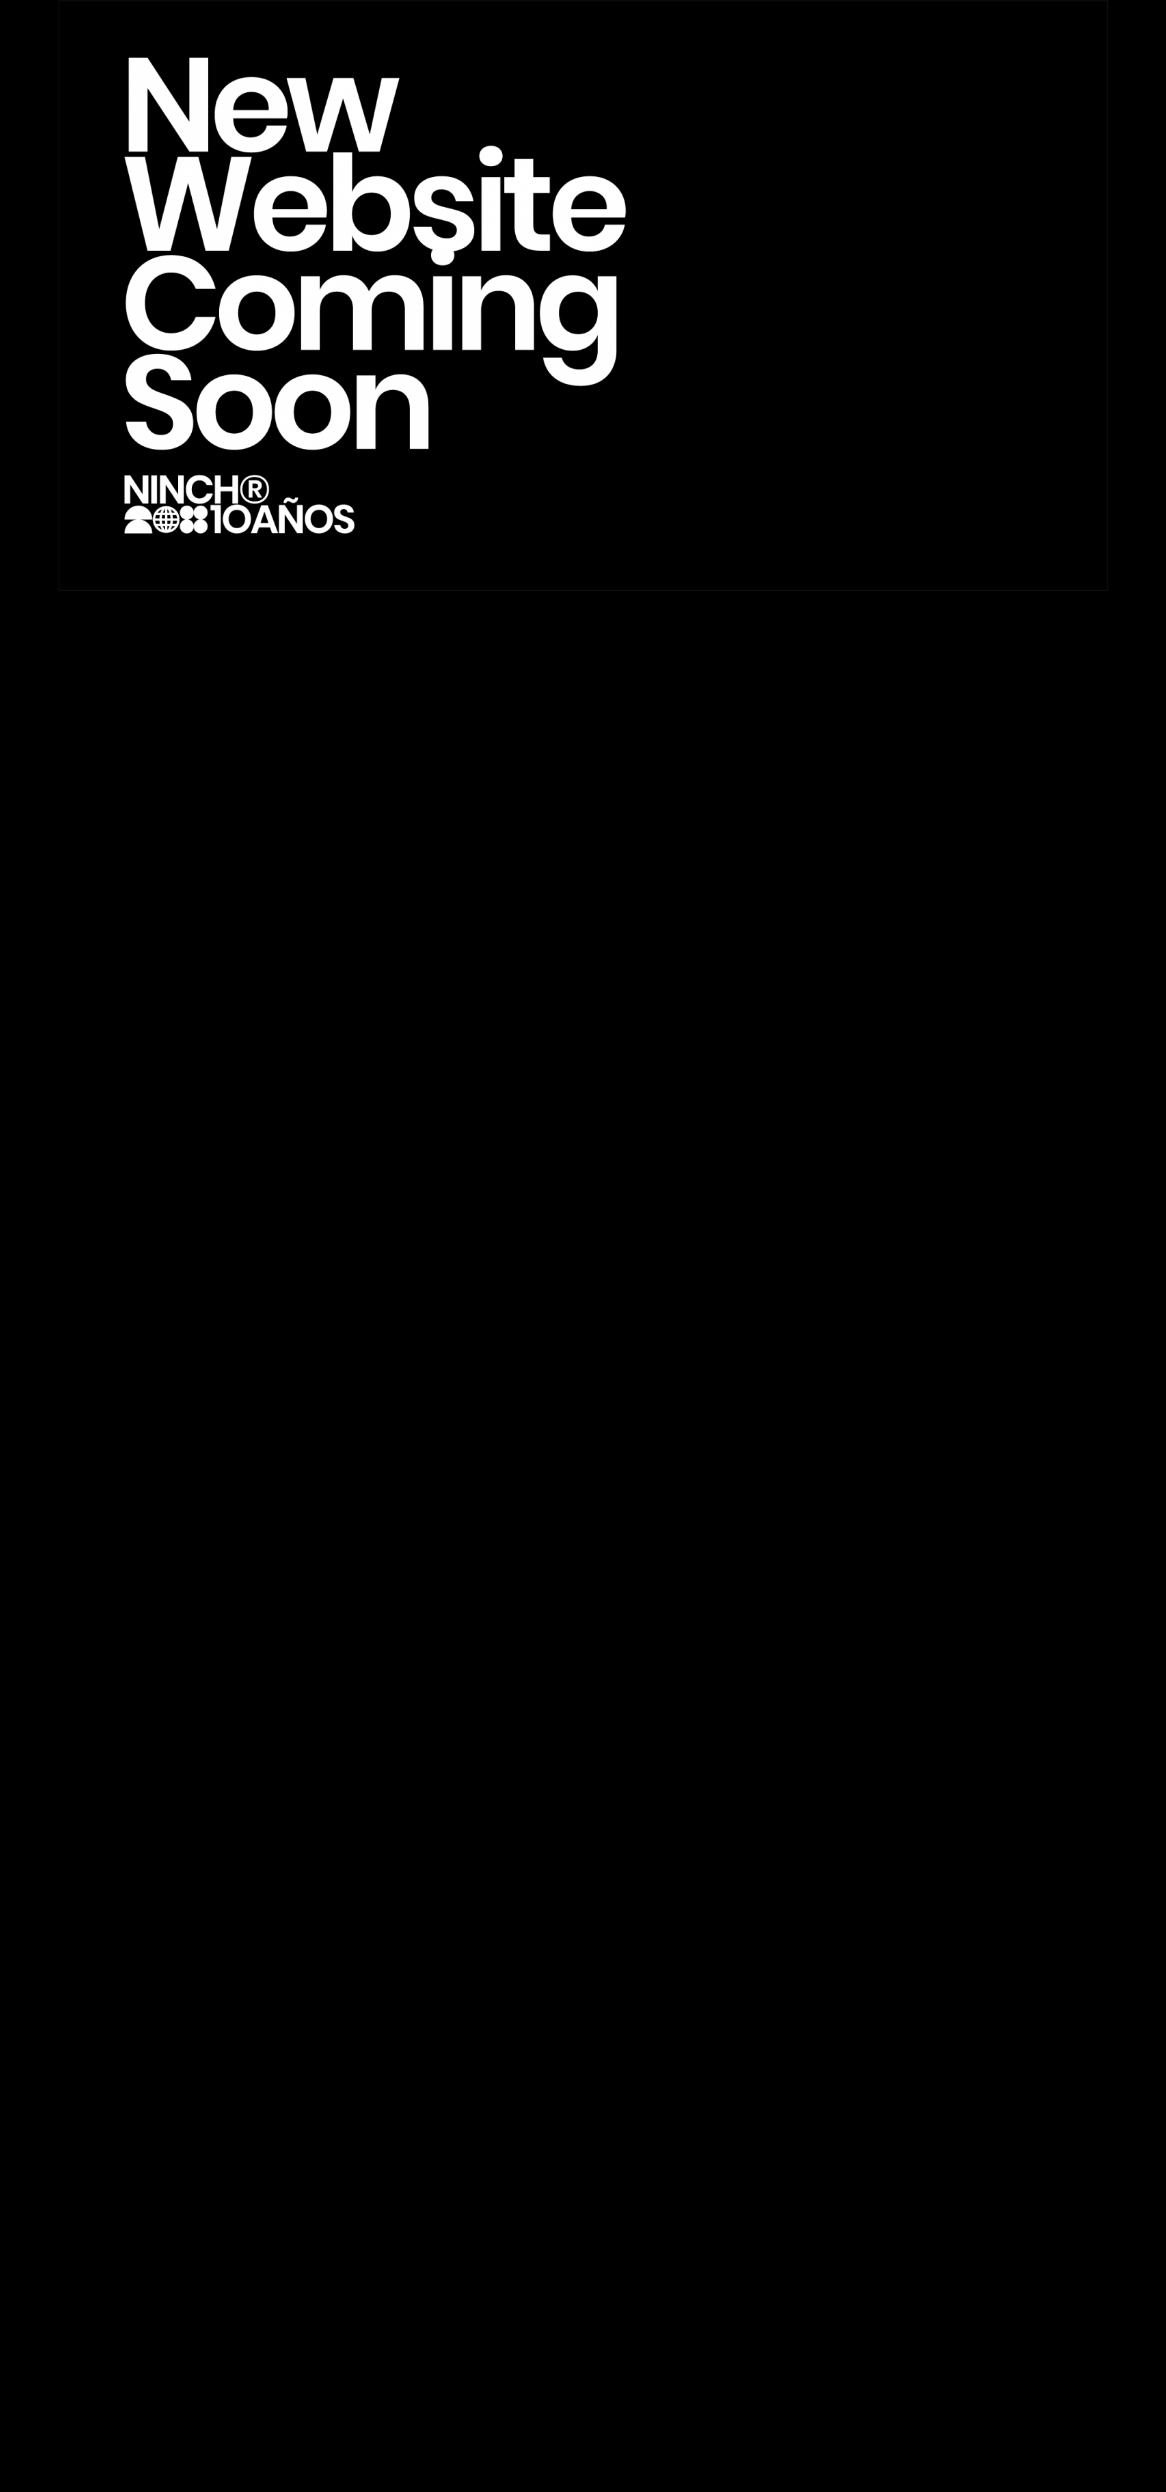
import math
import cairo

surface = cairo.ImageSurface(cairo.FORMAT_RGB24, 1166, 2492)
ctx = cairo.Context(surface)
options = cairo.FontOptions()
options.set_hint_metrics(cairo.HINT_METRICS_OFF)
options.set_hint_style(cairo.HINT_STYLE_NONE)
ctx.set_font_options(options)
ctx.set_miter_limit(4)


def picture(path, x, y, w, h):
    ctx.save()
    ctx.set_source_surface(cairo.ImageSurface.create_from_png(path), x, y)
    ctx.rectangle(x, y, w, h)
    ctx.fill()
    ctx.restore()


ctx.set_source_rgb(0, 0, 0)
ctx.paint()
picture("img1.png", 58, 0, 1051, 591)
surface.write_to_png("page.png")
